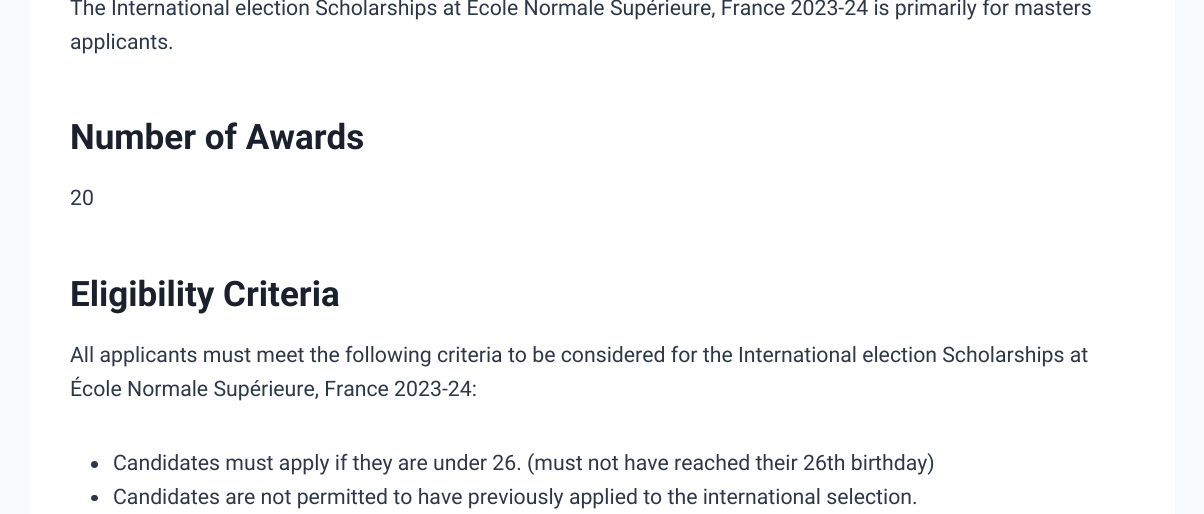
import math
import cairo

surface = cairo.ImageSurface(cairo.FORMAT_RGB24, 1204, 514)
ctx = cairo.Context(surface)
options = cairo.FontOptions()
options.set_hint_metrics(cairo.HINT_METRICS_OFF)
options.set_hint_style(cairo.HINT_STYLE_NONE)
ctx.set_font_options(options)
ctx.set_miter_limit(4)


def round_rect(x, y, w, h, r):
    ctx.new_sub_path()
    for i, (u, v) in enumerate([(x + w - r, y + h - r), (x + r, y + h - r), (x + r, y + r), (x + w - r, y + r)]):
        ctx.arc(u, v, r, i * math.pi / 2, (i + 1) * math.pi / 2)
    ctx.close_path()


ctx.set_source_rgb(0.969, 0.98, 0.988)
ctx.paint()
ctx.set_source_rgb(1, 1, 1)
ctx.rectangle(30, 0, 1145, 514)
ctx.fill()
ctx.select_font_face("Roboto")
ctx.set_font_size(21.25)
ctx.set_source_rgb(0.176, 0.216, 0.282)
ctx.move_to(70, 15)
ctx.show_text("The International election Scholarships at École Normale Supérieure, France 2023-24 is primarily for masters")
ctx.move_to(70, 49)
ctx.show_text("applicants.")
ctx.select_font_face("Roboto", cairo.FONT_SLANT_NORMAL, cairo.FONT_WEIGHT_BOLD)
ctx.set_font_size(35)
ctx.set_source_rgb(0.102, 0.125, 0.173)
ctx.move_to(70, 149)
ctx.show_text("Number of Awards")
ctx.select_font_face("Roboto")
ctx.set_font_size(21.25)
ctx.set_source_rgb(0.176, 0.216, 0.282)
ctx.move_to(70, 205)
ctx.show_text("20")
ctx.select_font_face("Roboto", cairo.FONT_SLANT_NORMAL, cairo.FONT_WEIGHT_BOLD)
ctx.set_font_size(35)
ctx.set_source_rgb(0.102, 0.125, 0.173)
ctx.move_to(70, 306)
ctx.show_text("Eligibility Criteria")
ctx.select_font_face("Roboto")
ctx.set_font_size(21.25)
ctx.set_source_rgb(0.176, 0.216, 0.282)
ctx.move_to(70, 362)
ctx.show_text("All applicants must meet the following criteria to be considered for the International election Scholarships at")
ctx.move_to(70, 396)
ctx.show_text("École Normale Supérieure, France 2023-24:")
ctx.new_path()
ctx.arc(94.5, 464.5, 3.5, 0, 2 * math.pi)
ctx.fill()
ctx.move_to(113, 470)
ctx.show_text("Candidates must apply if they are under 26. (must not have reached their 26th birthday)")
round_rect(91, 495, 7, 6, 3)
ctx.fill()
ctx.move_to(113, 504)
ctx.show_text("Candidates are not permitted to have previously applied to the international selection.")
surface.write_to_png("page.png")
